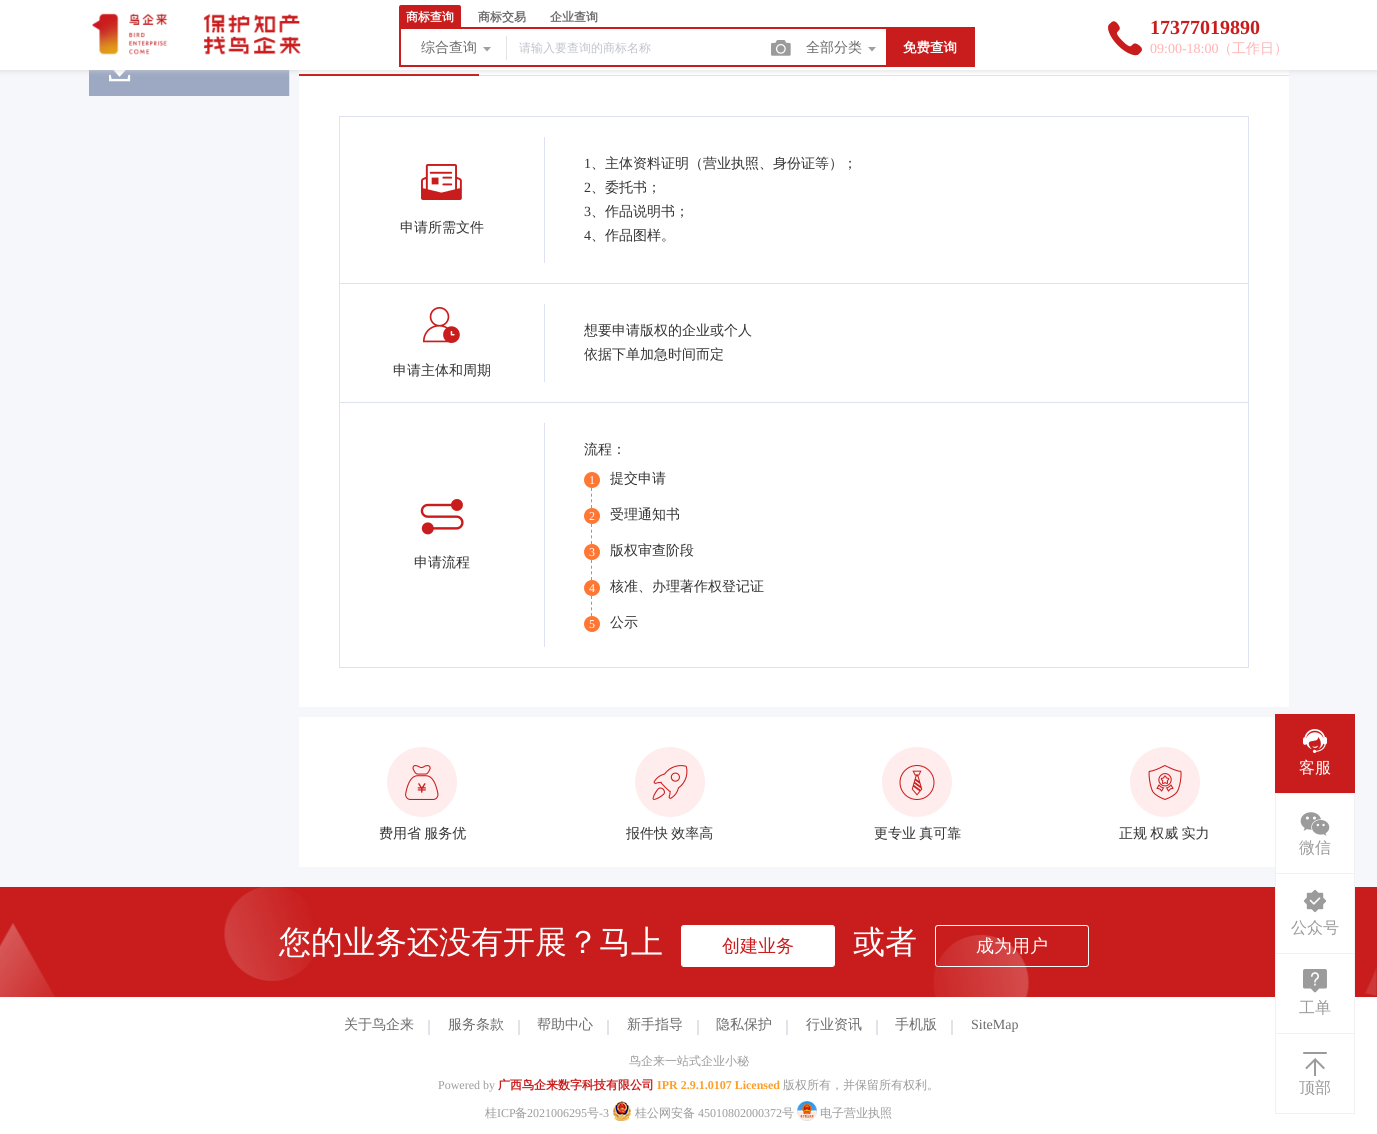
import math
import cairo

surface = cairo.ImageSurface(cairo.FORMAT_RGB24, 1377, 1134)
ctx = cairo.Context(surface)
options = cairo.FontOptions()
options.set_hint_metrics(cairo.HINT_METRICS_OFF)
options.set_hint_style(cairo.HINT_STYLE_NONE)
ctx.set_font_options(options)
ctx.set_miter_limit(4)


def spaced_text(x, y, s, letter, word):
    ctx.move_to(x, y)
    for ch in s:
        ctx.show_text(ch)
        ctx.rel_move_to(letter + word * (ch == ' '), 0)


def round_rect(x, y, w, h, r):
    ctx.new_sub_path()
    for i, (u, v) in enumerate([(x + w - r, y + h - r), (x + r, y + h - r), (x + r, y + r), (x + w - r, y + r)]):
        ctx.arc(u, v, r, i * math.pi / 2, (i + 1) * math.pi / 2)
    ctx.close_path()


def shadow(x, y, w, h, r, blur, alpha):
    ctx.push_group_with_content(cairo.CONTENT_ALPHA)
    ctx.set_operator(cairo.OPERATOR_SOURCE)
    for i in range(15, -16, -2):
        e = blur * i / 6
        if min(w, h) + 2 * e > 0:
            ctx.set_source_rgba(0, 0, 0, alpha * math.erfc((i - 1) / 8.5) / 2)
            round_rect(x - e, y - e, w + 2 * e, h + 2 * e, max(0, min(r + e + blur * .6, min(w, h) / 2 + e)))
            ctx.fill()
    ctx.mask(ctx.pop_group())


def picture(path, x, y, w, h):
    ctx.save()
    ctx.set_source_surface(cairo.ImageSurface.create_from_png(path), x, y)
    ctx.rectangle(x, y, w, h)
    ctx.fill()
    ctx.restore()


ctx.set_source_rgb(0.961, 0.965, 0.98)
ctx.paint()
ctx.set_source_rgb(0.902, 0.902, 0.902)
ctx.rectangle(289, 70, 1, 26)
ctx.fill()
ctx.set_source_rgb(0.616, 0.663, 0.765)
ctx.rectangle(89, 70, 200, 26)
ctx.fill()
picture("img4.png", 109, 70, 22, 12)
ctx.set_source_rgb(1, 1, 1)
ctx.rectangle(299, 70, 990, 5)
ctx.fill()
ctx.set_source_rgb(0.875, 0.89, 0.945)
ctx.rectangle(479, 75, 810, 1)
ctx.fill()
ctx.set_source_rgb(0.788, 0.114, 0.114)
ctx.rectangle(299, 74, 180, 2)
ctx.fill()
ctx.set_source_rgb(1, 1, 1)
ctx.rectangle(299, 76, 990, 631)
ctx.fill()
ctx.set_source_rgb(0.816, 0.816, 0.816)
shadow(0, 2, 1377, 70, 0, 2, 0.5)
ctx.set_source_rgb(1, 1, 1)
ctx.rectangle(0, 0, 1377, 70)
ctx.fill()
picture("img1.png", 92, 13, 209, 42)
ctx.set_source_rgb(0.788, 0.114, 0.114)
ctx.new_path()
ctx.move_to(401, 5)
ctx.line_to(459, 5)
ctx.curve_to(460, 5, 461, 6, 461, 7)
ctx.line_to(461, 27)
ctx.line_to(399, 27)
ctx.line_to(399, 7)
ctx.curve_to(399, 6, 400, 5, 401, 5)
ctx.close_path()
ctx.fill()
ctx.select_font_face("WenQuanYi Zen Hei", cairo.FONT_SLANT_NORMAL, cairo.FONT_WEIGHT_BOLD)
ctx.set_font_size(12)
ctx.set_source_rgb(1, 1, 1)
ctx.move_to(406, 21)
ctx.show_text("商标查询")
ctx.set_source_rgb(0.42, 0.42, 0.42)
ctx.move_to(478, 21)
ctx.show_text("商标交易")
ctx.move_to(550, 21)
ctx.show_text("企业查询")
ctx.set_source_rgb(0.788, 0.114, 0.114)
ctx.rectangle(399, 27, 576, 2)
ctx.fill()
ctx.rectangle(399, 65, 487, 2)
ctx.fill()
ctx.rectangle(399, 27, 2, 40)
ctx.fill()
ctx.set_source_rgb(0.878, 0.89, 0.91)
ctx.rectangle(506, 36, 1, 24)
ctx.fill()
ctx.select_font_face("WenQuanYi Zen Hei Medium")
ctx.set_font_size(14)
ctx.set_source_rgb(0.42, 0.42, 0.42)
ctx.move_to(421, 52)
ctx.show_text("综合查询")
ctx.set_source_rgb(0.616, 0.627, 0.651)
ctx.new_path()
ctx.move_to(483, 47)
ctx.line_to(491, 47)
ctx.line_to(487, 51.5)
ctx.close_path()
ctx.fill()
ctx.set_font_size(12)
ctx.set_source_rgb(0.753, 0.769, 0.8)
ctx.move_to(519, 52)
ctx.show_text("请输入要查询的商标名称")
picture("img2.png", 771, 40, 20, 16)
ctx.set_font_size(14)
ctx.set_source_rgb(0.42, 0.42, 0.42)
ctx.move_to(806, 52)
ctx.show_text("全部分类")
ctx.set_source_rgb(0.616, 0.627, 0.651)
ctx.new_path()
ctx.move_to(868, 47)
ctx.line_to(876, 47)
ctx.line_to(872, 51.5)
ctx.close_path()
ctx.fill()
ctx.set_source_rgb(0.788, 0.114, 0.114)
ctx.rectangle(886, 29, 89, 38)
ctx.fill()
ctx.select_font_face("WenQuanYi Zen Hei", cairo.FONT_SLANT_NORMAL, cairo.FONT_WEIGHT_BOLD)
ctx.set_font_size(13.5)
ctx.set_source_rgb(1, 1, 1)
ctx.move_to(903, 52)
ctx.show_text("免费查询")
picture("img3.png", 1108, 21, 34, 35)
ctx.select_font_face("Liberation Serif", cairo.FONT_SLANT_NORMAL, cairo.FONT_WEIGHT_BOLD)
ctx.set_font_size(20)
ctx.set_source_rgb(0.788, 0.114, 0.114)
ctx.move_to(1150, 34)
ctx.show_text("17377019890")
ctx.select_font_face("Liberation Serif")
ctx.set_font_size(14)
ctx.set_source_rgb(1, 0.702, 0.702)
ctx.move_to(1150, 53)
ctx.show_text("09:00-18:00")
ctx.select_font_face("WenQuanYi Zen Hei Medium")
ctx.move_to(1218, 53)
ctx.show_text("（工作日）")
ctx.rectangle(339.5, 116.5, 909, 167)
ctx.set_source_rgb(0.875, 0.89, 0.945)
ctx.set_line_width(1)
ctx.stroke()
picture("img5.png", 421, 164, 41, 36)
ctx.set_source_rgb(0.2, 0.2, 0.2)
ctx.move_to(400, 232)
ctx.show_text("申请所需文件")
ctx.set_source_rgb(0.875, 0.89, 0.945)
ctx.rectangle(544, 137, 1, 126)
ctx.fill()
ctx.select_font_face("Liberation Serif")
ctx.set_source_rgb(0.2, 0.2, 0.2)
ctx.move_to(584, 168)
ctx.show_text("1")
ctx.select_font_face("WenQuanYi Zen Hei Medium")
ctx.move_to(591, 168)
ctx.show_text("、主体资料证明（营业执照、身份证等）；")
ctx.select_font_face("Liberation Serif")
ctx.move_to(584, 192)
ctx.show_text("2")
ctx.select_font_face("WenQuanYi Zen Hei Medium")
ctx.move_to(591, 192)
ctx.show_text("、委托书；")
ctx.select_font_face("Liberation Serif")
ctx.move_to(584, 216)
ctx.show_text("3")
ctx.select_font_face("WenQuanYi Zen Hei Medium")
ctx.move_to(591, 216)
ctx.show_text("、作品说明书；")
ctx.select_font_face("Liberation Serif")
ctx.move_to(584, 240)
ctx.show_text("4")
ctx.select_font_face("WenQuanYi Zen Hei Medium")
ctx.move_to(591, 240)
ctx.show_text("、作品图样。")
ctx.rectangle(339.5, 283.5, 909, 119)
ctx.set_source_rgb(0.875, 0.89, 0.945)
ctx.stroke()
ctx.rectangle(544, 304, 1, 78)
ctx.fill()
ctx.set_source_rgb(0.2, 0.2, 0.2)
ctx.move_to(584, 335)
ctx.show_text("想要申请版权的企业或个人")
ctx.move_to(584, 359)
ctx.show_text("依据下单加急时间而定")
picture("img6.png", 423, 307, 37, 36)
ctx.move_to(393, 375)
ctx.show_text("申请主体和周期")
ctx.rectangle(339.5, 402.5, 909, 265)
ctx.set_source_rgb(0.875, 0.89, 0.945)
ctx.stroke()
picture("img7.png", 420, 499, 44, 36)
ctx.set_source_rgb(0.2, 0.2, 0.2)
ctx.move_to(414, 567)
ctx.show_text("申请流程")
ctx.set_source_rgb(0.875, 0.89, 0.945)
ctx.rectangle(544, 423, 1, 224)
ctx.fill()
ctx.set_source_rgb(0.2, 0.2, 0.2)
ctx.move_to(584, 454)
ctx.show_text("流程：")
ctx.set_source_rgb(1, 0.467, 0.2)
ctx.new_path()
ctx.arc(592, 480, 8, 0, 2 * math.pi)
ctx.fill()
ctx.select_font_face("Liberation Serif")
ctx.set_font_size(12)
ctx.set_source_rgb(1, 1, 1)
ctx.move_to(589, 484)
ctx.show_text("1")
ctx.select_font_face("WenQuanYi Zen Hei Medium")
ctx.set_font_size(14)
ctx.set_source_rgb(0.2, 0.2, 0.2)
ctx.move_to(610, 483)
ctx.show_text("提交申请")
ctx.new_path()
ctx.move_to(591.5, 488)
ctx.line_to(591.5, 508)
ctx.move_to(591.5, 524)
ctx.line_to(591.5, 544)
ctx.set_source_rgb(1, 0.467, 0.2)
ctx.set_dash([3, 2.67])
ctx.stroke()
ctx.arc(592, 516, 8, 0, 2 * math.pi)
ctx.fill()
ctx.select_font_face("Liberation Serif")
ctx.set_font_size(12)
ctx.set_source_rgb(1, 1, 1)
ctx.move_to(589, 520)
ctx.show_text("2")
ctx.select_font_face("WenQuanYi Zen Hei Medium")
ctx.set_font_size(14)
ctx.set_source_rgb(0.2, 0.2, 0.2)
ctx.move_to(610, 519)
ctx.show_text("受理通知书")
ctx.set_source_rgb(1, 0.467, 0.2)
ctx.new_path()
ctx.arc(592, 552, 8, 0, 2 * math.pi)
ctx.fill()
ctx.select_font_face("Liberation Serif")
ctx.set_font_size(12)
ctx.set_source_rgb(1, 1, 1)
ctx.move_to(589, 556)
ctx.show_text("3")
ctx.select_font_face("WenQuanYi Zen Hei Medium")
ctx.set_font_size(14)
ctx.set_source_rgb(0.2, 0.2, 0.2)
ctx.move_to(610, 555)
ctx.show_text("版权审查阶段")
ctx.new_path()
ctx.move_to(591.5, 560)
ctx.line_to(591.5, 580)
ctx.move_to(591.5, 596)
ctx.line_to(591.5, 616)
ctx.set_source_rgb(1, 0.467, 0.2)
ctx.stroke()
ctx.arc(592, 588, 8, 0, 2 * math.pi)
ctx.fill()
ctx.select_font_face("Liberation Serif")
ctx.set_font_size(12)
ctx.set_source_rgb(1, 1, 1)
ctx.move_to(589, 592)
ctx.show_text("4")
ctx.select_font_face("WenQuanYi Zen Hei Medium")
ctx.set_font_size(14)
ctx.set_source_rgb(0.2, 0.2, 0.2)
ctx.move_to(610, 591)
ctx.show_text("核准、办理著作权登记证")
ctx.set_source_rgb(1, 0.467, 0.2)
ctx.new_path()
ctx.arc(592, 624, 8, 0, 2 * math.pi)
ctx.fill()
ctx.select_font_face("Liberation Serif")
ctx.set_font_size(12)
ctx.set_source_rgb(1, 1, 1)
ctx.move_to(589, 628)
ctx.show_text("5")
ctx.select_font_face("WenQuanYi Zen Hei Medium")
ctx.set_font_size(14)
ctx.set_source_rgb(0.2, 0.2, 0.2)
ctx.move_to(610, 627)
ctx.show_text("公示")
ctx.set_source_rgb(1, 1, 1)
ctx.rectangle(299, 717, 976, 150)
ctx.fill()
ctx.set_source_rgb(1, 0.922, 0.922)
ctx.arc(422, 782, 35, 0, 2 * math.pi)
ctx.fill()
picture("img8.png", 405, 765, 34, 35)
ctx.set_source_rgb(0.2, 0.2, 0.2)
spaced_text(379, 838, "费用省 服务优", 0, -1)
ctx.set_source_rgb(1, 0.922, 0.922)
ctx.new_path()
ctx.arc(670, 782, 35, 0, 2 * math.pi)
ctx.fill()
picture("img9.png", 652, 765, 36, 35)
ctx.set_source_rgb(0.2, 0.2, 0.2)
spaced_text(626, 838, "报件快 效率高", 0, -1)
ctx.set_source_rgb(1, 0.922, 0.922)
ctx.new_path()
ctx.arc(917, 782, 35, 0, 2 * math.pi)
ctx.fill()
picture("img10.png", 899, 765, 36, 35)
ctx.set_source_rgb(0.2, 0.2, 0.2)
spaced_text(874, 838, "更专业 真可靠", 0, -1)
ctx.set_source_rgb(1, 0.922, 0.922)
ctx.new_path()
ctx.arc(1165, 782, 35, 0, 2 * math.pi)
ctx.fill()
picture("img11.png", 1148, 765, 34, 35)
ctx.set_source_rgb(0.2, 0.2, 0.2)
spaced_text(1119, 838, "正规 权威 实力", 0, -1)
ctx.set_source_rgb(1, 1, 1)
ctx.rectangle(0, 997, 1377, 137)
ctx.fill()
ctx.set_source_rgb(0.788, 0.114, 0.114)
ctx.rectangle(0, 887, 1377, 110)
ctx.fill()
picture("img12.png", 0, 887, 1377, 110)
ctx.set_font_size(32)
ctx.set_source_rgb(1, 1, 1)
ctx.move_to(279, 953)
ctx.show_text("您的业务还没有开展？马上")
round_rect(681.5, 925.5, 153, 41, 2.5)
ctx.fill_preserve()
ctx.set_dash([])
ctx.stroke()
ctx.set_font_size(18)
ctx.set_source_rgb(0.788, 0.114, 0.114)
ctx.move_to(722, 952)
ctx.show_text("创建业务")
ctx.set_font_size(32)
ctx.set_source_rgb(1, 1, 1)
ctx.move_to(853, 953)
ctx.show_text("或者")
round_rect(935.5, 925.5, 153, 41, 2.5)
ctx.stroke()
ctx.set_font_size(18)
ctx.move_to(976, 952)
ctx.show_text("成为用户")
ctx.set_font_size(14)
ctx.set_source_rgb(0.42, 0.42, 0.42)
ctx.move_to(344, 1029)
ctx.show_text("关于鸟企来")
ctx.set_source_rgb(0.878, 0.89, 0.91)
ctx.rectangle(428, 1020, 2, 15)
ctx.fill()
ctx.set_source_rgb(0.42, 0.42, 0.42)
ctx.move_to(448, 1029)
ctx.show_text("服务条款")
ctx.set_source_rgb(0.878, 0.89, 0.91)
ctx.rectangle(518, 1020, 2, 15)
ctx.fill()
ctx.set_source_rgb(0.42, 0.42, 0.42)
ctx.move_to(537, 1029)
ctx.show_text("帮助中心")
ctx.set_source_rgb(0.878, 0.89, 0.91)
ctx.rectangle(607, 1020, 2, 15)
ctx.fill()
ctx.set_source_rgb(0.42, 0.42, 0.42)
ctx.move_to(627, 1029)
ctx.show_text("新手指导")
ctx.set_source_rgb(0.878, 0.89, 0.91)
ctx.rectangle(697, 1020, 2, 15)
ctx.fill()
ctx.set_source_rgb(0.42, 0.42, 0.42)
ctx.move_to(716, 1029)
ctx.show_text("隐私保护")
ctx.set_source_rgb(0.878, 0.89, 0.91)
ctx.rectangle(786, 1020, 2, 15)
ctx.fill()
ctx.set_source_rgb(0.42, 0.42, 0.42)
ctx.move_to(806, 1029)
ctx.show_text("行业资讯")
ctx.set_source_rgb(0.878, 0.89, 0.91)
ctx.rectangle(876, 1020, 2, 15)
ctx.fill()
ctx.set_source_rgb(0.42, 0.42, 0.42)
ctx.move_to(895, 1029)
ctx.show_text("手机版")
ctx.set_source_rgb(0.878, 0.89, 0.91)
ctx.rectangle(951, 1020, 2, 15)
ctx.fill()
ctx.select_font_face("Liberation Serif")
ctx.set_source_rgb(0.42, 0.42, 0.42)
ctx.move_to(971, 1029)
ctx.show_text("SiteMap")
ctx.select_font_face("WenQuanYi Zen Hei Medium")
ctx.set_font_size(12)
ctx.set_source_rgb(0.608, 0.608, 0.608)
ctx.move_to(629, 1065)
ctx.show_text("鸟企来一站式企业小秘")
ctx.select_font_face("Liberation Serif")
ctx.move_to(438, 1089)
ctx.show_text("Powered by")
ctx.select_font_face("WenQuanYi Zen Hei", cairo.FONT_SLANT_NORMAL, cairo.FONT_WEIGHT_BOLD)
ctx.set_source_rgb(0.788, 0.114, 0.114)
ctx.move_to(498, 1089)
ctx.show_text("广西鸟企来数字科技有限公司")
ctx.select_font_face("Liberation Serif", cairo.FONT_SLANT_NORMAL, cairo.FONT_WEIGHT_BOLD)
ctx.set_source_rgb(1, 0.616, 0.145)
ctx.move_to(657, 1089)
ctx.show_text("IPR 2.9.1.0107 Licensed")
ctx.select_font_face("WenQuanYi Zen Hei Medium")
ctx.set_source_rgb(0.608, 0.608, 0.608)
ctx.move_to(783, 1089)
ctx.show_text("版权所有，并保留所有权利。")
ctx.move_to(485, 1117)
ctx.show_text("桂")
ctx.select_font_face("Liberation Serif")
ctx.move_to(497, 1117)
ctx.show_text("ICP")
ctx.select_font_face("WenQuanYi Zen Hei Medium")
ctx.move_to(515, 1117)
ctx.show_text("备")
ctx.select_font_face("Liberation Serif")
ctx.move_to(527, 1117)
ctx.show_text("2021006295")
ctx.select_font_face("WenQuanYi Zen Hei Medium")
ctx.move_to(587, 1117)
ctx.show_text("号")
ctx.select_font_face("Liberation Serif")
ctx.move_to(599, 1117)
ctx.show_text("-3")
picture("img13.png", 613, 1101, 18, 20)
ctx.select_font_face("WenQuanYi Zen Hei Medium")
ctx.move_to(635, 1117)
ctx.show_text("桂公网安备")
ctx.select_font_face("Liberation Serif")
ctx.move_to(698, 1117)
ctx.show_text("45010802000372")
ctx.select_font_face("WenQuanYi Zen Hei Medium")
ctx.move_to(782, 1117)
ctx.show_text("号")
picture("img14.png", 797, 1101, 20, 20)
ctx.move_to(820, 1117)
ctx.show_text("电子营业执照")
ctx.set_source_rgb(0.788, 0.114, 0.114)
ctx.rectangle(1275, 714, 80, 79)
ctx.fill()
ctx.set_source_rgb(0.945, 0.945, 0.945)
ctx.rectangle(1275, 793, 80, 1)
ctx.fill()
picture("img15.png", 1303, 729, 24, 24)
ctx.set_font_size(16)
ctx.set_source_rgb(1, 1, 1)
ctx.move_to(1299, 773)
ctx.show_text("客服")
ctx.rectangle(1276, 794, 78, 79)
ctx.fill()
ctx.set_source_rgb(0.945, 0.945, 0.945)
ctx.rectangle(1354, 794, 1, 320)
ctx.fill()
ctx.rectangle(1275, 873, 80, 1)
ctx.fill()
ctx.rectangle(1275, 794, 1, 80)
ctx.fill()
picture("img16.png", 1300, 812, 30, 24)
ctx.set_source_rgb(0.608, 0.608, 0.608)
ctx.move_to(1299, 853)
ctx.show_text("微信")
ctx.set_source_rgb(1, 1, 1)
ctx.rectangle(1276, 874, 78, 79)
ctx.fill()
ctx.set_source_rgb(0.945, 0.945, 0.945)
ctx.rectangle(1275, 953, 80, 1)
ctx.fill()
ctx.rectangle(1275, 874, 1, 80)
ctx.fill()
picture("img17.png", 1303, 889, 24, 24)
ctx.set_source_rgb(0.608, 0.608, 0.608)
ctx.move_to(1291, 933)
ctx.show_text("公众号")
ctx.set_source_rgb(1, 1, 1)
ctx.rectangle(1276, 954, 78, 43)
ctx.fill()
ctx.set_source_rgb(0.945, 0.945, 0.945)
ctx.rectangle(1275, 1033, 80, 1)
ctx.fill()
ctx.rectangle(1275, 954, 1, 80)
ctx.fill()
picture("img18.png", 1303, 969, 24, 24)
ctx.set_source_rgb(0.608, 0.608, 0.608)
ctx.move_to(1299, 1013)
ctx.show_text("工单")
ctx.set_source_rgb(0.945, 0.945, 0.945)
ctx.rectangle(1275, 1113, 80, 1)
ctx.fill()
ctx.rectangle(1275, 1034, 1, 80)
ctx.fill()
picture("img19.png", 1303, 1052, 24, 24)
ctx.set_source_rgb(0.608, 0.608, 0.608)
ctx.move_to(1299, 1093)
ctx.show_text("顶部")
surface.write_to_png("page.png")
